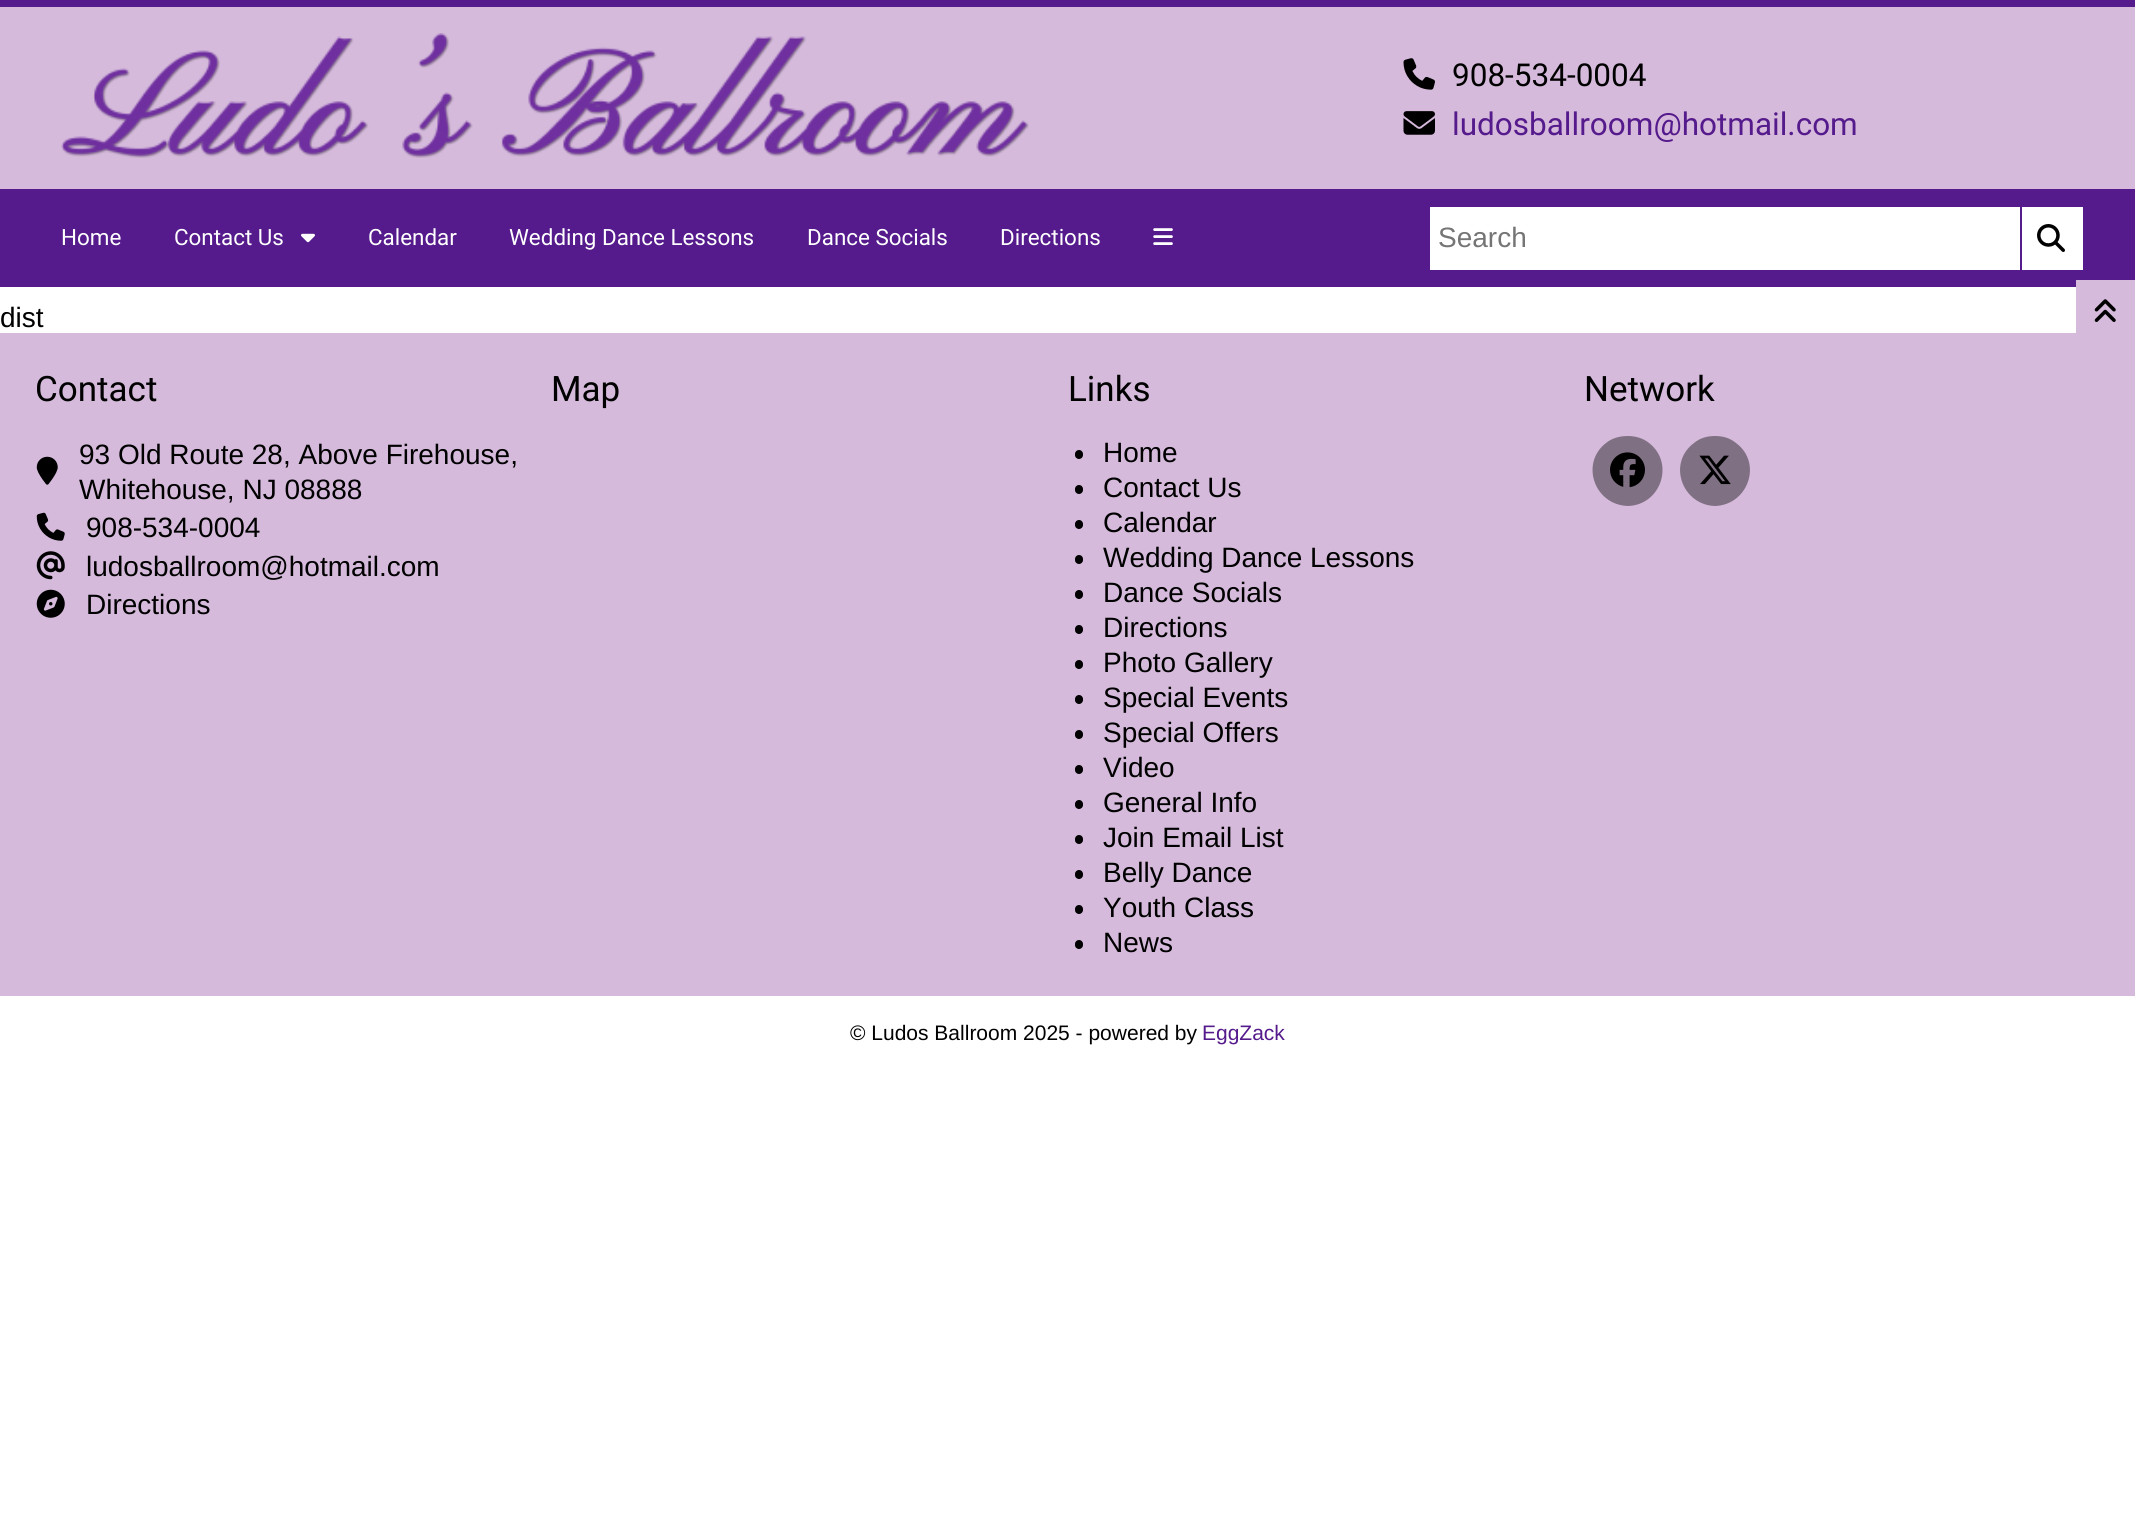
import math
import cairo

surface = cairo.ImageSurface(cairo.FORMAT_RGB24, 2135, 1532)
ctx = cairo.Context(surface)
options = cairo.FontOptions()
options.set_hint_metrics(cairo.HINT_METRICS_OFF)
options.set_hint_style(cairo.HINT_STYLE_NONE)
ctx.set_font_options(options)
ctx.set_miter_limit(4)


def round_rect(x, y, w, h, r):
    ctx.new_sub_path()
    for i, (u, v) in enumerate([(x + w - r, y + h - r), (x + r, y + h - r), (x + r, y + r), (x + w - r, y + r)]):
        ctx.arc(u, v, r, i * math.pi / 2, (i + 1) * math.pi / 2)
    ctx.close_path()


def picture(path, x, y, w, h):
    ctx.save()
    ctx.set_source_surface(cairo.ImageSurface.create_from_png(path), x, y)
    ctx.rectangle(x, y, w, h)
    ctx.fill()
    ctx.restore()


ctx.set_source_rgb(1, 1, 1)
ctx.paint()
ctx.set_source_rgb(0.333, 0.102, 0.545)
ctx.rectangle(0, 0, 2135, 7)
ctx.fill()
ctx.set_source_rgb(0.835, 0.729, 0.859)
ctx.rectangle(0, 7, 2135, 182)
ctx.fill()
picture("img1.png", 61, 33, 968, 125)
picture("img2.png", 1403, 58, 32, 32)
ctx.select_font_face("Roboto")
ctx.set_font_size(31.5)
ctx.set_source_rgb(0, 0, 0)
ctx.move_to(1452, 86)
ctx.show_text("908-534-0004")
picture("img3.png", 1403, 111, 32, 24)
ctx.set_source_rgb(0.333, 0.102, 0.545)
ctx.move_to(1452, 135)
ctx.show_text("ludosballroom@hotmail.com")
ctx.rectangle(0, 189, 2135, 98)
ctx.fill()
ctx.set_font_size(22.4)
ctx.set_source_rgb(1, 1, 1)
ctx.move_to(61, 245)
ctx.show_text("Home")
ctx.move_to(174, 245)
ctx.show_text("Contact Us")
picture("img4.png", 301, 233, 14, 10)
ctx.move_to(368, 245)
ctx.show_text("Calendar")
ctx.move_to(509, 245)
ctx.show_text("Wedding Dance Lessons")
ctx.move_to(807, 245)
ctx.show_text("Dance Socials")
ctx.move_to(1000, 245)
ctx.show_text("Directions")
picture("img5.png", 1153, 228, 20, 17)
ctx.rectangle(1430, 207, 590, 63)
ctx.fill()
ctx.select_font_face("Liberation Sans")
ctx.set_font_size(28)
ctx.set_source_rgb(0.459, 0.459, 0.459)
ctx.move_to(1438, 247)
ctx.show_text("Search")
ctx.set_source_rgb(1, 1, 1)
ctx.rectangle(2022, 207, 61, 63)
ctx.fill()
picture("img6.png", 2037, 224, 28, 28)
ctx.set_source_rgb(0, 0, 0)
ctx.move_to(0, 327)
ctx.show_text("dist")
ctx.set_source_rgb(0.835, 0.729, 0.859)
ctx.rectangle(0, 333, 2135, 663)
ctx.fill()
ctx.rectangle(2076, 280, 59, 53)
ctx.fill()
picture("img7.png", 2094, 299, 22, 23)
ctx.select_font_face("Roboto")
ctx.set_font_size(35)
ctx.set_source_rgb(0, 0, 0)
ctx.move_to(35, 401)
ctx.show_text("Contact")
picture("img8.png", 36, 456, 22, 29)
ctx.select_font_face("Liberation Sans")
ctx.set_font_size(28)
ctx.move_to(79, 464)
ctx.show_text("93 Old Route 28, Above Firehouse,")
ctx.move_to(79, 499)
ctx.show_text("Whitehouse, NJ 08888")
picture("img9.png", 36, 512, 29, 29)
ctx.move_to(86, 537)
ctx.show_text("908-534-0004")
picture("img10.png", 36, 551, 29, 29)
ctx.move_to(86, 576)
ctx.show_text("ludosballroom@hotmail.com")
picture("img11.png", 36, 589, 29, 29)
ctx.move_to(86, 614)
ctx.show_text("Directions")
ctx.select_font_face("Roboto")
ctx.set_font_size(35)
ctx.move_to(551, 401)
ctx.show_text("Map")
ctx.move_to(1068, 401)
ctx.show_text("Links")
round_rect(1075, 450, 8, 9, 4)
ctx.fill()
ctx.select_font_face("Liberation Sans")
ctx.set_font_size(28)
ctx.move_to(1103, 462)
ctx.show_text("Home")
round_rect(1075, 485, 8, 9, 4)
ctx.fill()
ctx.move_to(1103, 497)
ctx.show_text("Contact Us")
round_rect(1075, 520, 8, 9, 4)
ctx.fill()
ctx.move_to(1103, 532)
ctx.show_text("Calendar")
round_rect(1075, 555, 8, 9, 4)
ctx.fill()
ctx.move_to(1103, 567)
ctx.show_text("Wedding Dance Lessons")
round_rect(1075, 590, 8, 9, 4)
ctx.fill()
ctx.move_to(1103, 602)
ctx.show_text("Dance Socials")
round_rect(1075, 625, 8, 9, 4)
ctx.fill()
ctx.move_to(1103, 637)
ctx.show_text("Directions")
round_rect(1075, 660, 8, 9, 4)
ctx.fill()
ctx.move_to(1103, 672)
ctx.show_text("Photo Gallery")
round_rect(1075, 695, 8, 9, 4)
ctx.fill()
ctx.move_to(1103, 707)
ctx.show_text("Special Events")
round_rect(1075, 730, 8, 9, 4)
ctx.fill()
ctx.move_to(1103, 742)
ctx.show_text("Special Offers")
round_rect(1075, 765, 8, 9, 4)
ctx.fill()
ctx.move_to(1103, 777)
ctx.show_text("Video")
round_rect(1075, 800, 8, 9, 4)
ctx.fill()
ctx.move_to(1103, 812)
ctx.show_text("General Info")
round_rect(1075, 835, 8, 9, 4)
ctx.fill()
ctx.move_to(1103, 847)
ctx.show_text("Join Email List")
round_rect(1075, 870, 8, 9, 4)
ctx.fill()
ctx.move_to(1103, 882)
ctx.show_text("Belly Dance")
round_rect(1075, 905, 8, 9, 4)
ctx.fill()
ctx.move_to(1103, 917)
ctx.show_text("Youth Class")
round_rect(1075, 940, 8, 9, 4)
ctx.fill()
ctx.move_to(1103, 952)
ctx.show_text("News")
ctx.select_font_face("Roboto")
ctx.set_font_size(35)
ctx.move_to(1584, 401)
ctx.show_text("Network")
ctx.set_source_rgb(0.502, 0.439, 0.514)
ctx.new_path()
ctx.move_to(1628, 506)
ctx.curve_to(1661, 505, 1675, 463, 1649, 443)
ctx.curve_to(1643, 438, 1635, 436, 1628, 436)
ctx.curve_to(1620, 436, 1612, 438, 1606, 443)
ctx.curve_to(1580, 463, 1594, 505, 1628, 506)
ctx.close_path()
ctx.fill()
picture("img12.png", 1610, 452, 35, 36)
ctx.new_path()
ctx.move_to(1715, 506)
ctx.curve_to(1748, 505, 1763, 463, 1736, 443)
ctx.curve_to(1730, 438, 1723, 436, 1715, 436)
ctx.curve_to(1707, 436, 1700, 438, 1694, 443)
ctx.curve_to(1667, 463, 1682, 505, 1715, 506)
ctx.close_path()
ctx.fill()
picture("img13.png", 1699, 455, 32, 30)
ctx.select_font_face("Liberation Sans")
ctx.set_font_size(21)
ctx.set_source_rgb(0, 0, 0)
ctx.move_to(850, 1040)
ctx.show_text("© Ludos Ballroom 2025 - powered by")
ctx.set_source_rgb(0.333, 0.102, 0.545)
ctx.move_to(1202, 1040)
ctx.show_text("EggZack")
surface.write_to_png("page.png")
